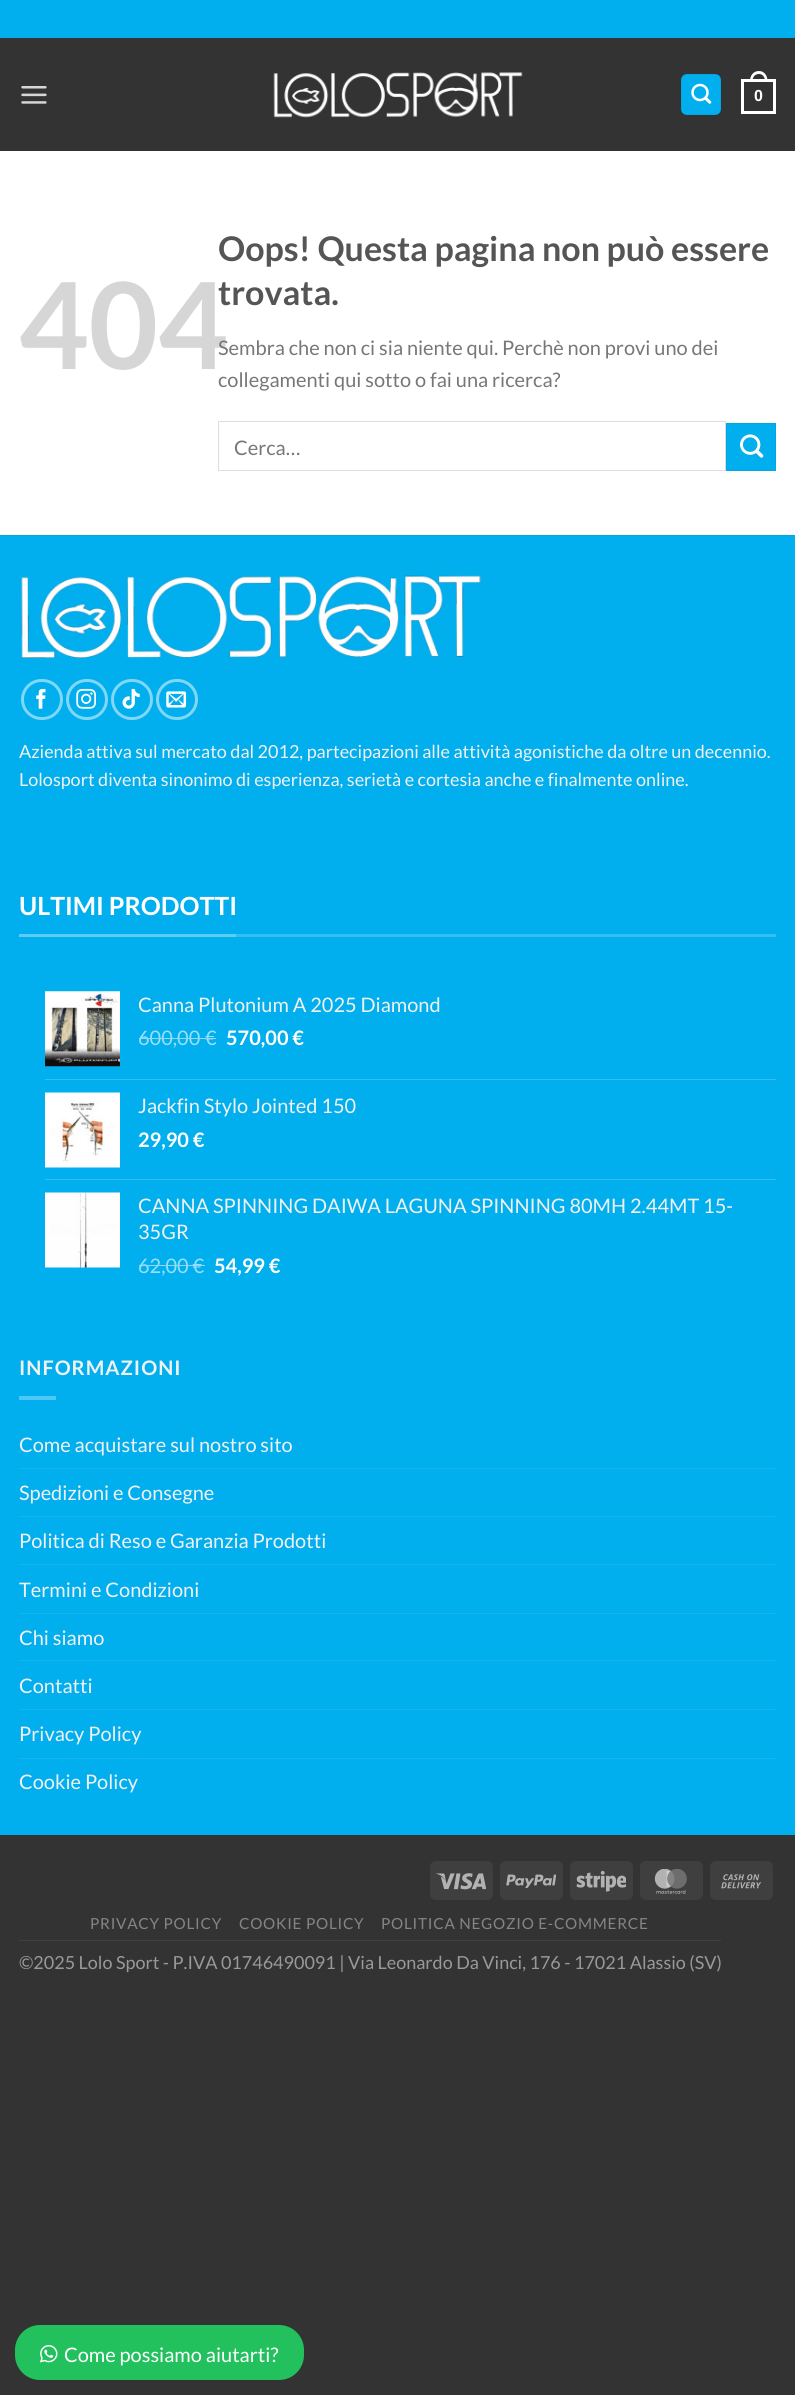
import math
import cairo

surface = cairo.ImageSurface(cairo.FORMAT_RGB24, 795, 2395)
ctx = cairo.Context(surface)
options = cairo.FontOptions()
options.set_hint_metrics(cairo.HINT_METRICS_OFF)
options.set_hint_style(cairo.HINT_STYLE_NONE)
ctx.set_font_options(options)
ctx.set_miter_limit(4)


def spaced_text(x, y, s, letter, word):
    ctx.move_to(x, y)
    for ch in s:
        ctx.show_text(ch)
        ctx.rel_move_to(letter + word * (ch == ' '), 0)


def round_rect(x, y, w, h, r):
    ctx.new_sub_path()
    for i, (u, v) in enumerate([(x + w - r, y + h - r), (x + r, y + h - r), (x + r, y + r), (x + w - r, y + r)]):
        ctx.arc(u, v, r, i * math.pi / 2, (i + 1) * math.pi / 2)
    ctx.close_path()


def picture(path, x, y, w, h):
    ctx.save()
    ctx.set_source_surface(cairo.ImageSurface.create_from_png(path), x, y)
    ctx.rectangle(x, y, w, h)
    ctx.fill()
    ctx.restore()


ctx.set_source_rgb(0.2, 0.2, 0.2)
ctx.paint()
ctx.set_source_rgb(1, 1, 1)
ctx.rectangle(0, 151, 795, 384)
ctx.fill()
ctx.set_source_rgb(0.004, 0.686, 0.933)
ctx.rectangle(0, 0, 795, 38)
ctx.fill()
picture("img1.png", 21, 86, 26, 18)
picture("img2.png", 273, 72, 250, 46)
round_rect(681, 74, 40, 41, 6)
ctx.fill()
ctx.rectangle(681.5, 74.5, 39, 40)
ctx.set_source_rgba(0, 0, 0, 0.05)
ctx.set_line_width(1)
ctx.stroke()
picture("img3.png", 691, 83, 21, 21)
ctx.rectangle(742.5, 80.5, 32, 32)
ctx.set_source_rgb(1, 1, 1)
ctx.set_line_width(3)
ctx.stroke()
ctx.set_fill_rule(cairo.FILL_RULE_EVEN_ODD)
ctx.new_path()
ctx.move_to(759, 71)
ctx.curve_to(764.5, 71, 767.5, 76, 767.5, 81)
ctx.line_to(750, 81)
ctx.curve_to(750, 76, 753, 71, 759, 71)
ctx.close_path()
ctx.move_to(759, 74)
ctx.curve_to(763, 74, 765, 77.5, 765, 81)
ctx.line_to(752.5, 81)
ctx.curve_to(752.5, 77.5, 754.5, 74, 759, 74)
ctx.close_path()
ctx.fill()
ctx.select_font_face("Liberation Sans", cairo.FONT_SLANT_NORMAL, cairo.FONT_WEIGHT_BOLD)
ctx.set_font_size(16)
ctx.move_to(754, 101)
ctx.show_text("0")
ctx.select_font_face("Lato", cairo.FONT_SLANT_NORMAL, cairo.FONT_WEIGHT_BOLD)
ctx.set_font_size(120)
ctx.set_source_rgb(0.839, 0.839, 0.839)
ctx.move_to(19, 369)
ctx.show_text("404")
ctx.set_font_size(34)
ctx.set_source_rgb(0.333, 0.333, 0.333)
ctx.move_to(218, 261)
ctx.show_text("Oops! Questa pagina non può essere")
ctx.move_to(218, 305)
ctx.show_text("trovata.")
ctx.select_font_face("Lato")
ctx.set_font_size(20)
ctx.set_source_rgb(0.467, 0.467, 0.467)
ctx.move_to(218, 355)
ctx.show_text("Sembra che non ci sia niente qui. Perchè non provi uno dei")
ctx.move_to(218, 387)
ctx.show_text("collegamenti qui sotto o fai una ricerca?")
ctx.rectangle(218.5, 421.5, 507, 49)
ctx.set_source_rgb(0.867, 0.867, 0.867)
ctx.set_line_width(1)
ctx.stroke()
ctx.set_source_rgb(0.467, 0.467, 0.467)
ctx.move_to(234, 455)
ctx.show_text("Cerca…")
ctx.set_source_rgb(0.004, 0.686, 0.933)
ctx.rectangle(726.5, 423.5, 49, 47)
ctx.fill_preserve()
ctx.set_source_rgb(0.004, 0.651, 0.886)
ctx.stroke()
picture("img4.png", 740, 434, 24, 24)
ctx.set_source_rgb(0.004, 0.686, 0.933)
ctx.rectangle(0, 536, 795, 1299)
ctx.fill()
ctx.set_source_rgb(0.004, 0.651, 0.886)
ctx.rectangle(0, 535, 795, 1)
ctx.fill()
picture("img5.png", 21, 575, 460, 83)
round_rect(22.5, 680.5, 39, 38, 19)
ctx.set_source_rgb(0.502, 0.843, 0.969)
ctx.set_line_width(3)
ctx.stroke()
picture("img6.png", 36, 688, 10, 21)
round_rect(67.5, 680.5, 39, 38, 19)
ctx.stroke()
picture("img7.png", 76, 688, 20, 21)
round_rect(112.5, 680.5, 39, 38, 19)
ctx.stroke()
picture("img8.png", 122, 688, 18, 21)
round_rect(157.5, 680.5, 39, 38, 19)
ctx.stroke()
picture("img9.png", 166, 691, 21, 17)
ctx.set_font_size(18)
ctx.set_source_rgb(0.945, 0.945, 0.945)
ctx.move_to(19, 758)
ctx.show_text("Azienda attiva sul mercato dal 2012, partecipazioni alle attività agonistiche da oltre un decennio.")
ctx.move_to(19, 786)
ctx.show_text("Lolosport diventa sinonimo di esperienza, serietà e cortesia anche e finalmente online.")
ctx.set_source_rgb(0.204, 0.749, 0.945)
ctx.rectangle(236, 934, 540, 3)
ctx.fill()
ctx.set_source_rgb(0.365, 0.8, 0.957)
ctx.rectangle(19, 934, 217, 3)
ctx.fill()
ctx.select_font_face("Lato", cairo.FONT_SLANT_NORMAL, cairo.FONT_WEIGHT_BOLD)
ctx.set_font_size(25)
ctx.set_source_rgb(1, 1, 1)
ctx.move_to(19, 915)
ctx.show_text("ULTIMI PRODOTTI")
picture("img10.png", 45, 991, 75, 76)
ctx.select_font_face("Lato")
ctx.set_font_size(20)
ctx.set_source_rgb(0.945, 0.945, 0.945)
ctx.move_to(138, 1012)
ctx.show_text("Canna Plutonium A 2025 Diamond")
ctx.set_source_rgb(0.6, 0.875, 0.973)
ctx.move_to(138, 1045)
ctx.show_text("600,00")
ctx.set_source_rgb(0.569, 0.843, 0.941)
ctx.rectangle(139, 1038, 66, 1)
ctx.fill()
ctx.set_source_rgb(0.6, 0.875, 0.973)
ctx.move_to(205, 1045)
ctx.show_text("€")
ctx.set_source_rgb(0.569, 0.843, 0.941)
ctx.rectangle(205, 1038, 11, 1)
ctx.fill()
ctx.select_font_face("Lato", cairo.FONT_SLANT_NORMAL, cairo.FONT_WEIGHT_BOLD)
ctx.set_source_rgb(1, 1, 1)
ctx.move_to(226, 1045)
ctx.show_text("570,00 €")
ctx.set_source_rgb(0.204, 0.749, 0.945)
ctx.rectangle(45, 1079, 731, 1)
ctx.fill()
picture("img11.png", 45, 1092, 75, 76)
ctx.select_font_face("Lato")
ctx.set_source_rgb(0.945, 0.945, 0.945)
ctx.move_to(138, 1113)
ctx.show_text("Jackfin Stylo Jointed 150")
ctx.select_font_face("Lato", cairo.FONT_SLANT_NORMAL, cairo.FONT_WEIGHT_BOLD)
ctx.set_source_rgb(1, 1, 1)
ctx.move_to(138, 1147)
ctx.show_text("29,90 €")
ctx.set_source_rgb(0.204, 0.749, 0.945)
ctx.rectangle(45, 1179, 731, 1)
ctx.fill()
picture("img12.png", 45, 1192, 75, 76)
ctx.select_font_face("Lato")
ctx.set_source_rgb(0.945, 0.945, 0.945)
ctx.move_to(138, 1213)
ctx.show_text("CANNA SPINNING DAIWA LAGUNA SPINNING 80MH 2.44MT 15-")
ctx.move_to(138, 1239)
ctx.show_text("35GR")
ctx.set_source_rgb(0.6, 0.875, 0.973)
ctx.move_to(138, 1273)
ctx.show_text("62,00 €")
ctx.set_source_rgb(0.569, 0.843, 0.941)
ctx.rectangle(139, 1265, 66, 1)
ctx.fill()
ctx.select_font_face("Lato", cairo.FONT_SLANT_NORMAL, cairo.FONT_WEIGHT_BOLD)
ctx.set_source_rgb(1, 1, 1)
ctx.move_to(214, 1273)
ctx.show_text("54,99 €")
ctx.set_source_rgb(0.945, 0.945, 0.945)
spaced_text(19, 1375, "INFORMAZIONI", 1, 0)
ctx.set_source_rgb(0.302, 0.78, 0.953)
ctx.rectangle(19, 1396, 37, 4)
ctx.fill()
ctx.select_font_face("Lato")
ctx.set_source_rgb(0.945, 0.945, 0.945)
ctx.move_to(19, 1452)
ctx.show_text("Come acquistare sul nostro sito")
ctx.set_source_rgb(0.082, 0.71, 0.937)
ctx.rectangle(19, 1468, 757, 1)
ctx.fill()
ctx.set_source_rgb(0.945, 0.945, 0.945)
ctx.move_to(19, 1500)
ctx.show_text("Spedizioni e Consegne")
ctx.set_source_rgb(0.082, 0.71, 0.937)
ctx.rectangle(19, 1516, 757, 1)
ctx.fill()
ctx.set_source_rgb(0.945, 0.945, 0.945)
ctx.move_to(19, 1548)
ctx.show_text("Politica di Reso e Garanzia Prodotti")
ctx.set_source_rgb(0.082, 0.71, 0.937)
ctx.rectangle(19, 1564, 757, 1)
ctx.fill()
ctx.set_source_rgb(0.945, 0.945, 0.945)
ctx.move_to(19, 1597)
ctx.show_text("Termini e Condizioni")
ctx.set_source_rgb(0.082, 0.71, 0.937)
ctx.rectangle(19, 1613, 757, 1)
ctx.fill()
ctx.set_source_rgb(0.945, 0.945, 0.945)
ctx.move_to(19, 1645)
ctx.show_text("Chi siamo")
ctx.set_source_rgb(0.082, 0.71, 0.937)
ctx.rectangle(19, 1660, 757, 1)
ctx.fill()
ctx.set_source_rgb(0.945, 0.945, 0.945)
ctx.move_to(19, 1693)
ctx.show_text("Contatti")
ctx.set_source_rgb(0.082, 0.71, 0.937)
ctx.rectangle(19, 1709, 757, 1)
ctx.fill()
ctx.set_source_rgb(0.945, 0.945, 0.945)
ctx.move_to(19, 1741)
ctx.show_text("Privacy Policy")
ctx.set_source_rgb(0.082, 0.71, 0.937)
ctx.rectangle(19, 1758, 757, 1)
ctx.fill()
ctx.set_source_rgb(0.945, 0.945, 0.945)
ctx.move_to(19, 1789)
ctx.show_text("Cookie Policy")
ctx.set_source_rgb(0.247, 0.247, 0.247)
round_rect(430, 1861, 63, 39, 6)
ctx.fill()
picture("img13.png", 436, 1873, 50, 17)
round_rect(500, 1861, 63, 39, 6)
ctx.fill()
picture("img14.png", 506, 1874, 50, 14)
round_rect(570, 1861, 63, 39, 6)
ctx.fill()
picture("img15.png", 576, 1870, 50, 22)
round_rect(640, 1861, 63, 39, 6)
ctx.fill()
picture("img16.png", 654, 1869, 33, 25)
round_rect(710, 1861, 63, 39, 6)
ctx.fill()
picture("img17.png", 721, 1874, 41, 15)
ctx.set_source_rgb(0.251, 0.251, 0.251)
ctx.rectangle(19, 1940, 702, 1)
ctx.fill()
ctx.set_font_size(15.25)
ctx.set_source_rgb(0.522, 0.522, 0.522)
spaced_text(90, 1929, "PRIVACY POLICY", 0.75, 0)
spaced_text(239, 1929, "COOKIE POLICY", 0.75, 0)
spaced_text(381, 1929, "POLITICA NEGOZIO E-COMMERCE", 0.75, 0)
ctx.set_font_size(18)
ctx.set_source_rgb(0.6, 0.6, 0.6)
ctx.move_to(19, 1969)
ctx.show_text("©2025 Lolo Sport - P.IVA 01746490091 | Via Leonardo Da Vinci, 176 - 17021 Alassio (SV)")
ctx.set_source_rgb(0.133, 0.757, 0.369)
round_rect(15, 2325, 289, 55, 25)
ctx.fill()
picture("img18.png", 40, 2345, 18, 18)
ctx.set_font_size(20)
ctx.set_source_rgb(1, 1, 1)
ctx.move_to(64, 2362)
ctx.show_text("Come possiamo aiutarti?")
surface.write_to_png("page.png")
